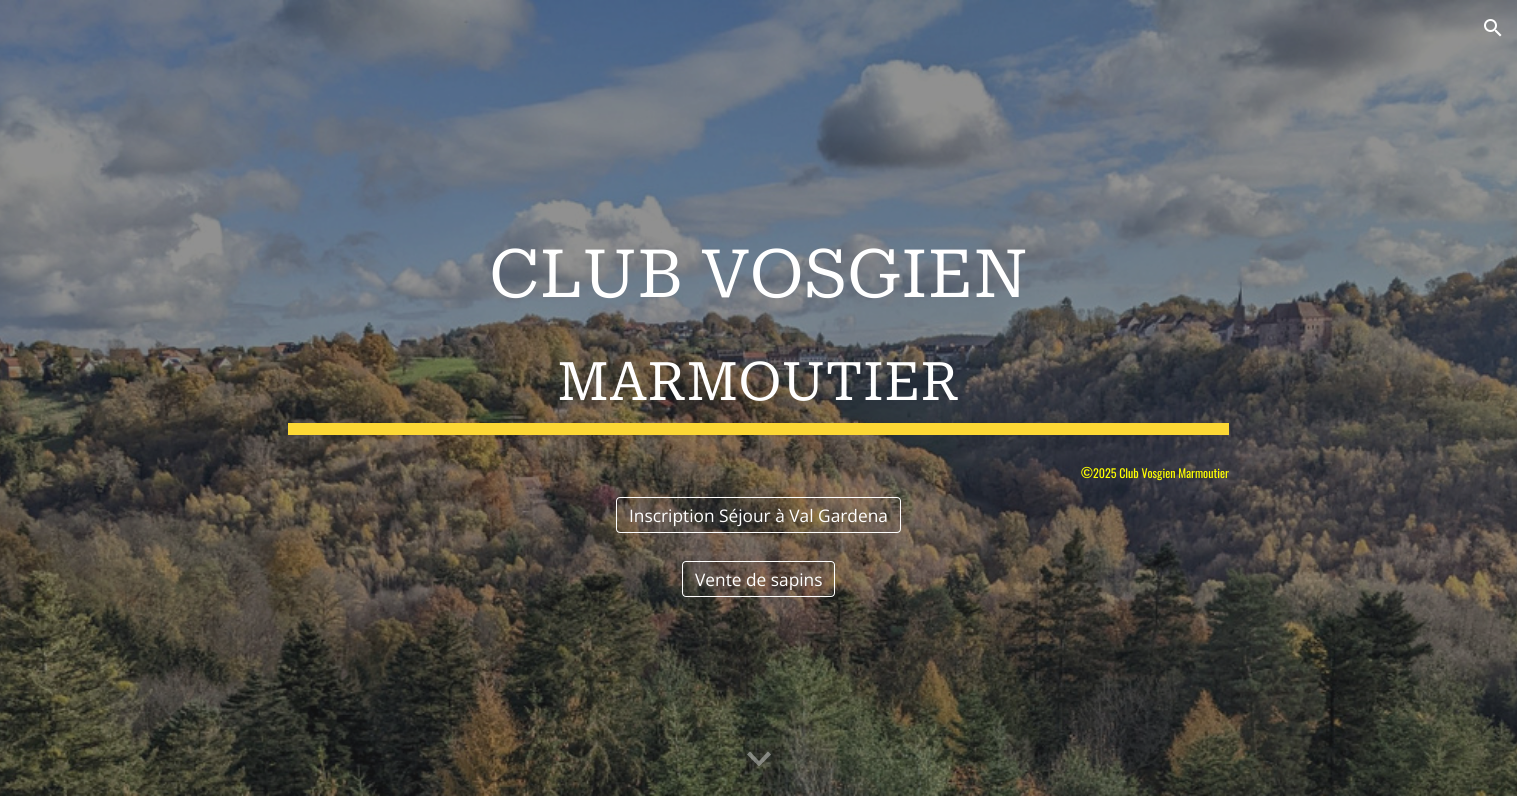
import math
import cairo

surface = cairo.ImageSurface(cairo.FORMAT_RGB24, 1517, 796)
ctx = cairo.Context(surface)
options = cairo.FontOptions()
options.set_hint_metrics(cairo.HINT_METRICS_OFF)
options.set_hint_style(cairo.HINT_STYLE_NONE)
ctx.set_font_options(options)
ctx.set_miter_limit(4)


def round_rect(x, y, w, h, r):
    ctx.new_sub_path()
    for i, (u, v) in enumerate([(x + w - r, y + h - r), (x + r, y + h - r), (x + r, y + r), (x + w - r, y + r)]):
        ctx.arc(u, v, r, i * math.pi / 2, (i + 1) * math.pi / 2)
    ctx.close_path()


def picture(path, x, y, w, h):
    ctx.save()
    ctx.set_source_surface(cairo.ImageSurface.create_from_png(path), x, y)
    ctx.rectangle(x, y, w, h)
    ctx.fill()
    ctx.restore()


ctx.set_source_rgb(1, 1, 1)
ctx.paint()
picture("img2.png", 0, 0, 1517, 796)
picture("img1.png", 1484, 19, 18, 18)
ctx.select_font_face("Roboto Serif")
ctx.set_font_size(66.75)
ctx.set_source_rgb(1, 1, 1)
ctx.move_to(489, 297)
ctx.show_text("CLUB VOSGIEN")
ctx.set_font_size(53.25)
ctx.move_to(557, 400)
ctx.show_text("MARMOUTIER")
ctx.set_source_rgb(0.992, 0.847, 0.208)
ctx.rectangle(288, 423, 941, 12)
ctx.fill()
ctx.select_font_face("Liberation Sans", cairo.FONT_SLANT_NORMAL, cairo.FONT_WEIGHT_BOLD)
ctx.set_font_size(16)
ctx.set_source_rgb(1, 1, 0)
ctx.move_to(1081, 478)
ctx.show_text("©")
ctx.select_font_face("Oswald")
ctx.set_font_size(12)
ctx.move_to(1093, 478)
ctx.show_text("2025 Club Vosgien Marmoutier")
round_rect(616.5, 497.5, 284, 35, 3.5)
ctx.set_source_rgb(1, 1, 1)
ctx.set_line_width(1)
ctx.stroke()
ctx.select_font_face("Open Sans")
ctx.set_font_size(17.3)
ctx.move_to(629, 522)
ctx.show_text("Inscription Séjour à Val Gardena")
round_rect(682.5, 561.5, 152, 35, 3.5)
ctx.stroke()
ctx.save()
ctx.rectangle(695, 568, 127, 22)
ctx.clip()
ctx.move_to(695, 586)
ctx.show_text("Vente de sapins")
ctx.restore()
ctx.set_source_rgba(1, 1, 1, 0.4)
ctx.new_path()
ctx.move_to(750, 751.5)
ctx.line_to(759, 761)
ctx.line_to(768, 751.5)
ctx.line_to(771, 754.5)
ctx.line_to(759, 766.5)
ctx.line_to(747, 754.5)
ctx.close_path()
ctx.fill()
surface.write_to_png("page.png")
